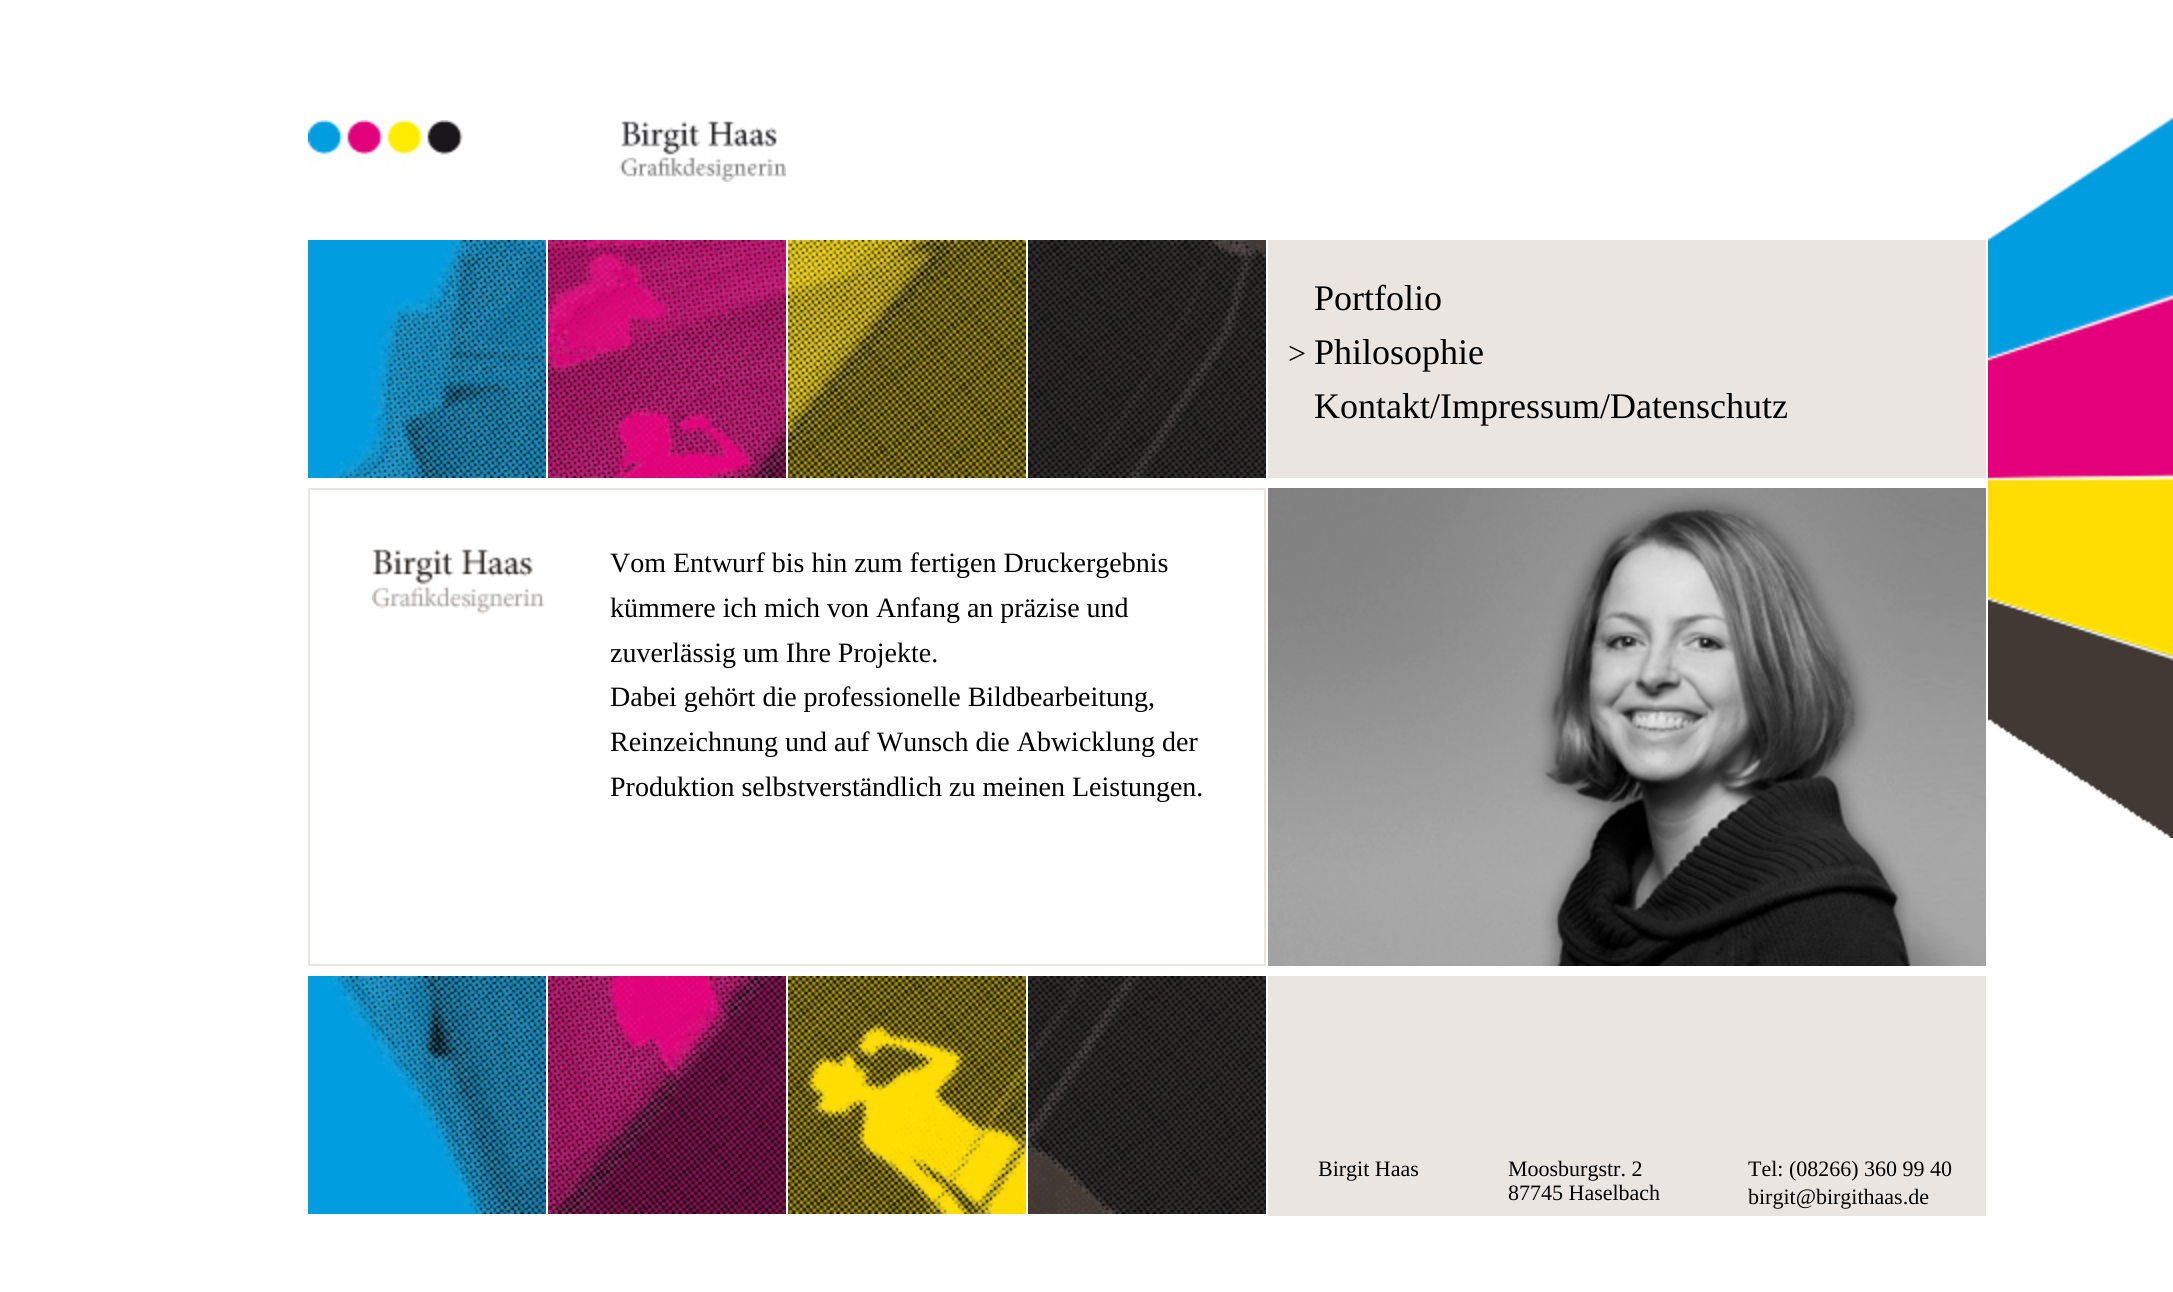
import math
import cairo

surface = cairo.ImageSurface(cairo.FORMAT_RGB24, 2173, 1292)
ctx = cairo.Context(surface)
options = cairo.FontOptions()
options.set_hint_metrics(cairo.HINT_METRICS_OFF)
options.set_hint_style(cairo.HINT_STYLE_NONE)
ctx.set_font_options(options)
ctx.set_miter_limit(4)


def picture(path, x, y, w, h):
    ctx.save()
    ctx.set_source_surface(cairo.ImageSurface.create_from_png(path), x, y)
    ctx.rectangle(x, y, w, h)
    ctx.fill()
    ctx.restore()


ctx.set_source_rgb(1, 1, 1)
ctx.paint()
picture("img1.png", 308, 120, 478, 62)
picture("img2.png", 1988, 118, 185, 600)
picture("img3.png", 308, 240, 238, 238)
picture("img4.png", 548, 240, 238, 238)
picture("img5.png", 788, 240, 238, 238)
picture("img6.png", 1028, 240, 238, 238)
ctx.set_source_rgb(0.918, 0.898, 0.886)
ctx.rectangle(1268, 240, 718, 238)
ctx.fill()
ctx.select_font_face("Liberation Serif")
ctx.set_font_size(36)
ctx.set_source_rgb(0, 0, 0)
ctx.move_to(1314, 310)
ctx.show_text("Portfolio")
ctx.set_font_size(32)
ctx.move_to(1288, 364)
ctx.show_text(">")
ctx.set_font_size(36)
ctx.move_to(1314, 364)
ctx.show_text("Philosophie")
ctx.move_to(1314, 418)
ctx.show_text("Kontakt/Impressum/Datenschutz")
ctx.rectangle(309, 489, 956, 476)
ctx.set_source_rgb(0.918, 0.898, 0.886)
ctx.stroke()
picture("img7.png", 1268, 488, 718, 478)
picture("img8.png", 372, 549, 173, 66)
ctx.set_font_size(28)
ctx.set_source_rgb(0, 0, 0)
ctx.move_to(610, 572)
ctx.show_text("Vom Entwurf bis hin zum fertigen Druckergebnis")
ctx.move_to(610, 617)
ctx.show_text("kümmere ich mich von Anfang an präzise und")
ctx.move_to(610, 662)
ctx.show_text("zuverlässig um Ihre Projekte.")
ctx.move_to(610, 706)
ctx.show_text("Dabei gehört die professionelle Bildbearbeitung,")
ctx.move_to(610, 751)
ctx.show_text("Reinzeichnung und auf Wunsch die Abwicklung der")
ctx.move_to(610, 796)
ctx.show_text("Produktion selbstverständlich zu meinen Leistungen.")
picture("img9.png", 1988, 718, 185, 120)
picture("img10.png", 308, 976, 238, 238)
picture("img11.png", 548, 976, 238, 238)
picture("img12.png", 788, 976, 238, 238)
picture("img13.png", 1028, 976, 238, 238)
ctx.set_source_rgb(0.918, 0.898, 0.886)
ctx.rectangle(1268, 976, 718, 240)
ctx.fill()
ctx.set_font_size(22)
ctx.set_source_rgb(0, 0, 0)
ctx.move_to(1318, 1176)
ctx.show_text("Birgit Haas")
ctx.move_to(1508, 1176)
ctx.show_text("Moosburgstr. 2")
ctx.move_to(1508, 1200)
ctx.show_text("87745 Haselbach")
ctx.move_to(1748, 1176)
ctx.show_text("Tel: (08266) 360 99 40")
ctx.move_to(1748, 1204)
ctx.show_text("birgit@birgithaas.de")
surface.write_to_png("page.png")
